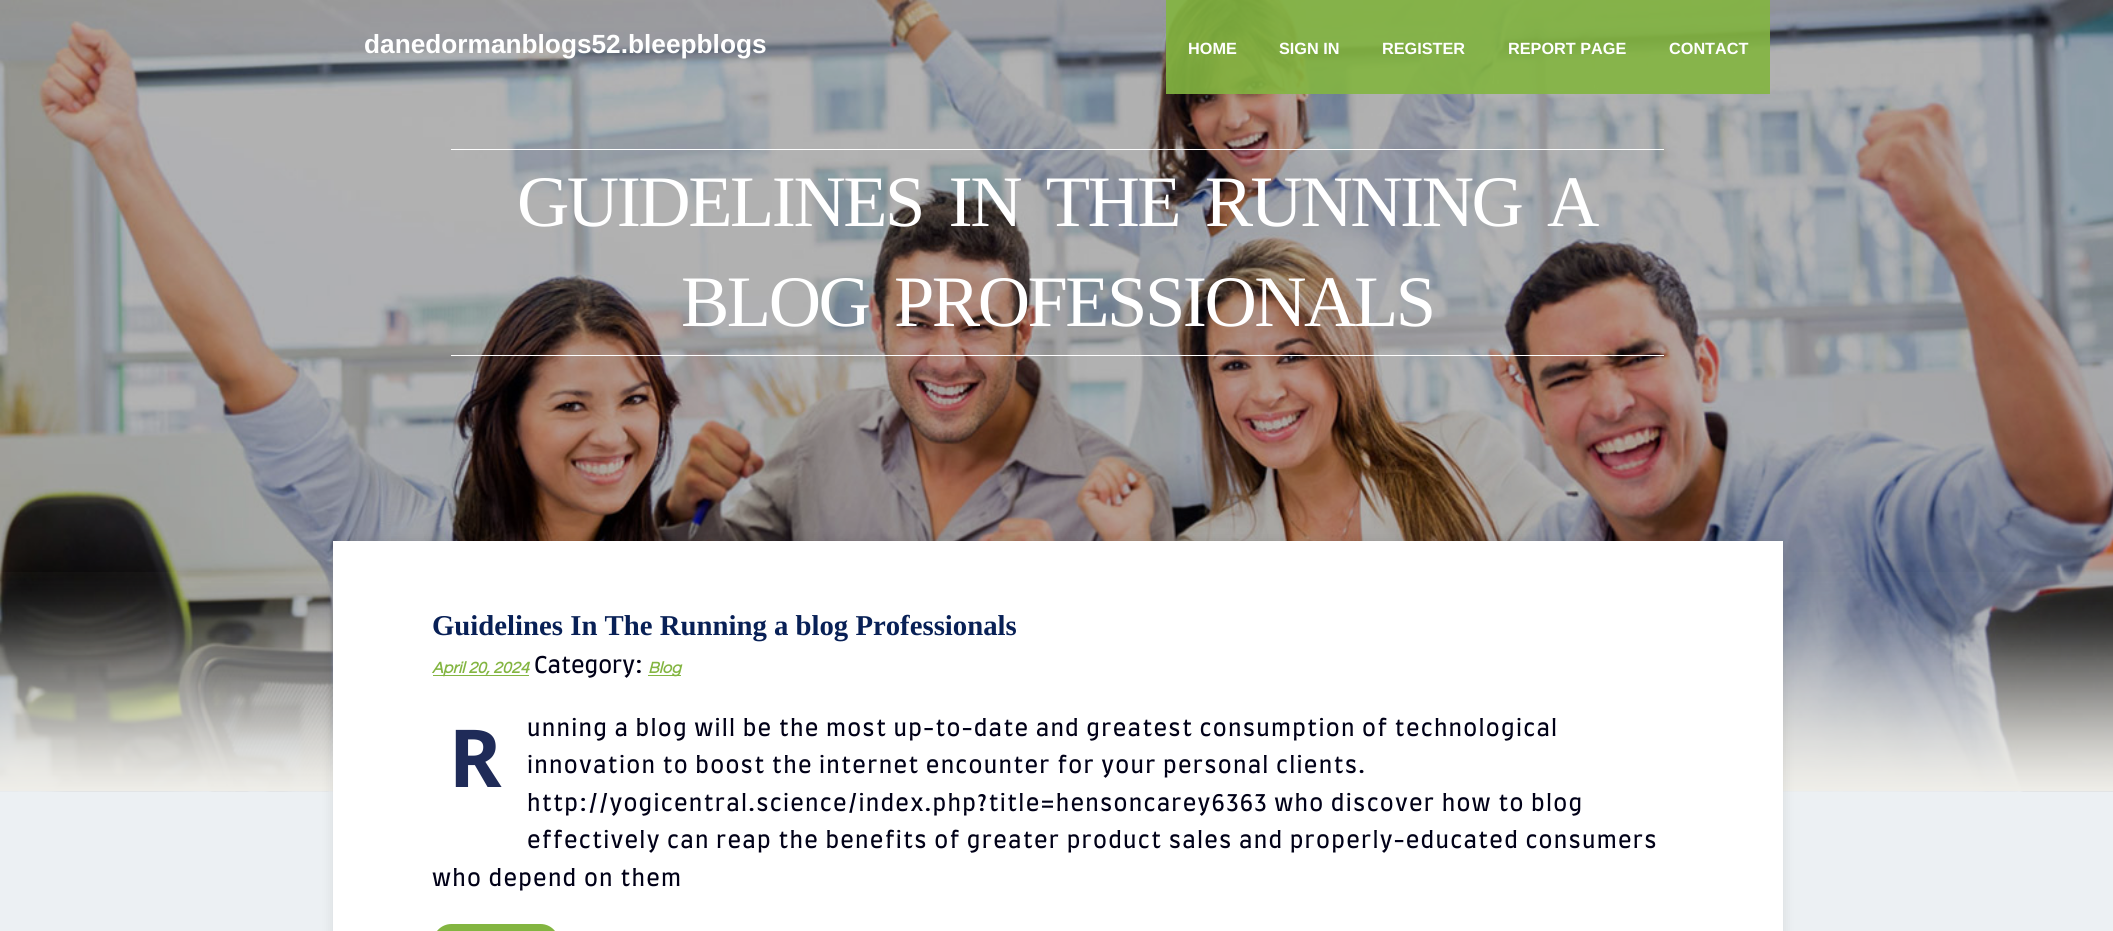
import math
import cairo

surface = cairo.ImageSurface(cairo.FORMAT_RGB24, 2113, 931)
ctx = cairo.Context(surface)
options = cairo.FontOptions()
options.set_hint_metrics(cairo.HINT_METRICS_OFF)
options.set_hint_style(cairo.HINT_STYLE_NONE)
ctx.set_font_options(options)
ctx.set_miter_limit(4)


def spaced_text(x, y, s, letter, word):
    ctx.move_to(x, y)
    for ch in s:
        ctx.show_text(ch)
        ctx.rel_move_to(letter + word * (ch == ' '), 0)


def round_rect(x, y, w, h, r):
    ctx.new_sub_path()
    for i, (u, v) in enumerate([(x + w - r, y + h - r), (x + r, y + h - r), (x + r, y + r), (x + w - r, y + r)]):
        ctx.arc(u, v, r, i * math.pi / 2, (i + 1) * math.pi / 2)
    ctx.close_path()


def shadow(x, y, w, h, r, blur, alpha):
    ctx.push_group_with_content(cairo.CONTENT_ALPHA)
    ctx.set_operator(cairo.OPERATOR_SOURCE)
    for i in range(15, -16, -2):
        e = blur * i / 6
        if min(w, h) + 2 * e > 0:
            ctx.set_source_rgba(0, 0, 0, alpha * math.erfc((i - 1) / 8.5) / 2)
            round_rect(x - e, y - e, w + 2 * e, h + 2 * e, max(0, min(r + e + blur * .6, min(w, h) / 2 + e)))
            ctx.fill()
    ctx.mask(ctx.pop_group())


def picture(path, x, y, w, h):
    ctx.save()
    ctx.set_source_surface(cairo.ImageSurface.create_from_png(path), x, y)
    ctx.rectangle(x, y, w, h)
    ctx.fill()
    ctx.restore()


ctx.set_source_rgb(0.925, 0.941, 0.953)
ctx.paint()
picture("img1.png", 0, 0, 2113, 792)
ctx.select_font_face("Liberation Sans", cairo.FONT_SLANT_NORMAL, cairo.FONT_WEIGHT_BOLD)
ctx.set_font_size(26.25)
ctx.set_source_rgb(1, 1, 1)
ctx.move_to(364, 53)
ctx.show_text("danedormanblogs52.bleepblogs")
ctx.set_source_rgba(0.514, 0.71, 0.255, 0.9)
ctx.rectangle(1166, 0, 92, 94)
ctx.fill()
ctx.set_font_size(16.25)
ctx.set_source_rgb(1, 1, 1)
ctx.move_to(1188, 54)
ctx.show_text("HOME")
ctx.set_source_rgba(0.514, 0.71, 0.255, 0.9)
ctx.rectangle(1258, 0, 103, 94)
ctx.fill()
ctx.set_source_rgb(1, 1, 1)
ctx.move_to(1279, 54)
ctx.show_text("SIGN IN")
ctx.set_source_rgba(0.514, 0.71, 0.255, 0.9)
ctx.rectangle(1361, 0, 125, 94)
ctx.fill()
ctx.set_source_rgb(1, 1, 1)
ctx.move_to(1382, 54)
ctx.show_text("REGISTER")
ctx.set_source_rgba(0.514, 0.71, 0.255, 0.9)
ctx.rectangle(1486, 0, 162, 94)
ctx.fill()
ctx.set_source_rgb(1, 1, 1)
ctx.move_to(1508, 54)
ctx.show_text("REPORT PAGE")
ctx.set_source_rgba(0.514, 0.71, 0.255, 0.9)
ctx.rectangle(1648, 0, 122, 94)
ctx.fill()
ctx.set_source_rgb(1, 1, 1)
ctx.move_to(1669, 54)
ctx.show_text("CONTACT")
ctx.rectangle(451, 149, 1213, 1)
ctx.fill()
ctx.rectangle(451, 355, 1213, 1)
ctx.fill()
ctx.select_font_face("Liberation Serif")
ctx.set_font_size(72.5)
spaced_text(517, 226, "GUIDELINES IN THE RUNNING A", -2.5, 10)
spaced_text(681, 326, "BLOG PROFESSIONALS", -2.5, 10)
picture("img2.png", 0, 572, 2113, 220)
ctx.set_source_rgb(0, 0, 0)
shadow(333, 541, 1450, 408, 0, 6, 0.1)
ctx.set_source_rgb(1, 1, 1)
ctx.rectangle(333, 541, 1450, 390)
ctx.fill()
ctx.select_font_face("Liberation Serif", cairo.FONT_SLANT_NORMAL, cairo.FONT_WEIGHT_BOLD)
ctx.set_font_size(28.75)
ctx.set_source_rgb(0.035, 0.125, 0.337)
ctx.move_to(432, 635)
ctx.show_text("Guidelines In The Running a blog Professionals")
ctx.set_source_rgb(0.514, 0.71, 0.255)
ctx.rectangle(433, 675, 96, 1)
ctx.fill()
ctx.select_font_face("Questrial", cairo.FONT_SLANT_ITALIC, cairo.FONT_WEIGHT_BOLD)
ctx.set_font_size(16.25)
ctx.move_to(432, 673)
ctx.show_text("April 20, 2024")
ctx.select_font_face("Farro")
ctx.set_font_size(22.5)
ctx.set_source_rgb(0.004, 0.004, 0.094)
ctx.move_to(534, 673)
ctx.show_text("Category:")
ctx.set_source_rgb(0.514, 0.71, 0.255)
ctx.rectangle(648, 675, 33, 1)
ctx.fill()
ctx.select_font_face("Questrial", cairo.FONT_SLANT_ITALIC, cairo.FONT_WEIGHT_BOLD)
ctx.set_font_size(16.25)
ctx.move_to(648, 673)
ctx.show_text("Blog")
ctx.select_font_face("Noto Sans", cairo.FONT_SLANT_NORMAL, cairo.FONT_WEIGHT_BOLD)
ctx.set_font_size(80)
ctx.set_source_rgb(0.122, 0.169, 0.345)
spaced_text(449, 787, "R", 1.25, 0)
ctx.select_font_face("Farro")
ctx.set_font_size(22.5)
ctx.set_source_rgb(0.004, 0.004, 0.094)
spaced_text(527, 736, "unning a blog will be the most up-to-date and greatest consumption of technological", 1.25, 0)
spaced_text(527, 773, "innovation to boost the internet encounter for your personal clients.", 1.25, 0)
spaced_text(527, 811, "http://yogicentral.science/index.php?title=hensoncarey6363 who discover how to blog", 1.25, 0)
spaced_text(527, 848, "effectively can reap the benefits of greater product sales and properly-educated consumers", 1.25, 0)
spaced_text(432, 886, "who depend on them", 1.25, 0)
ctx.set_source_rgb(0.514, 0.71, 0.255)
round_rect(433, 924, 126, 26, 18.5)
ctx.fill()
surface.write_to_png("page.png")
